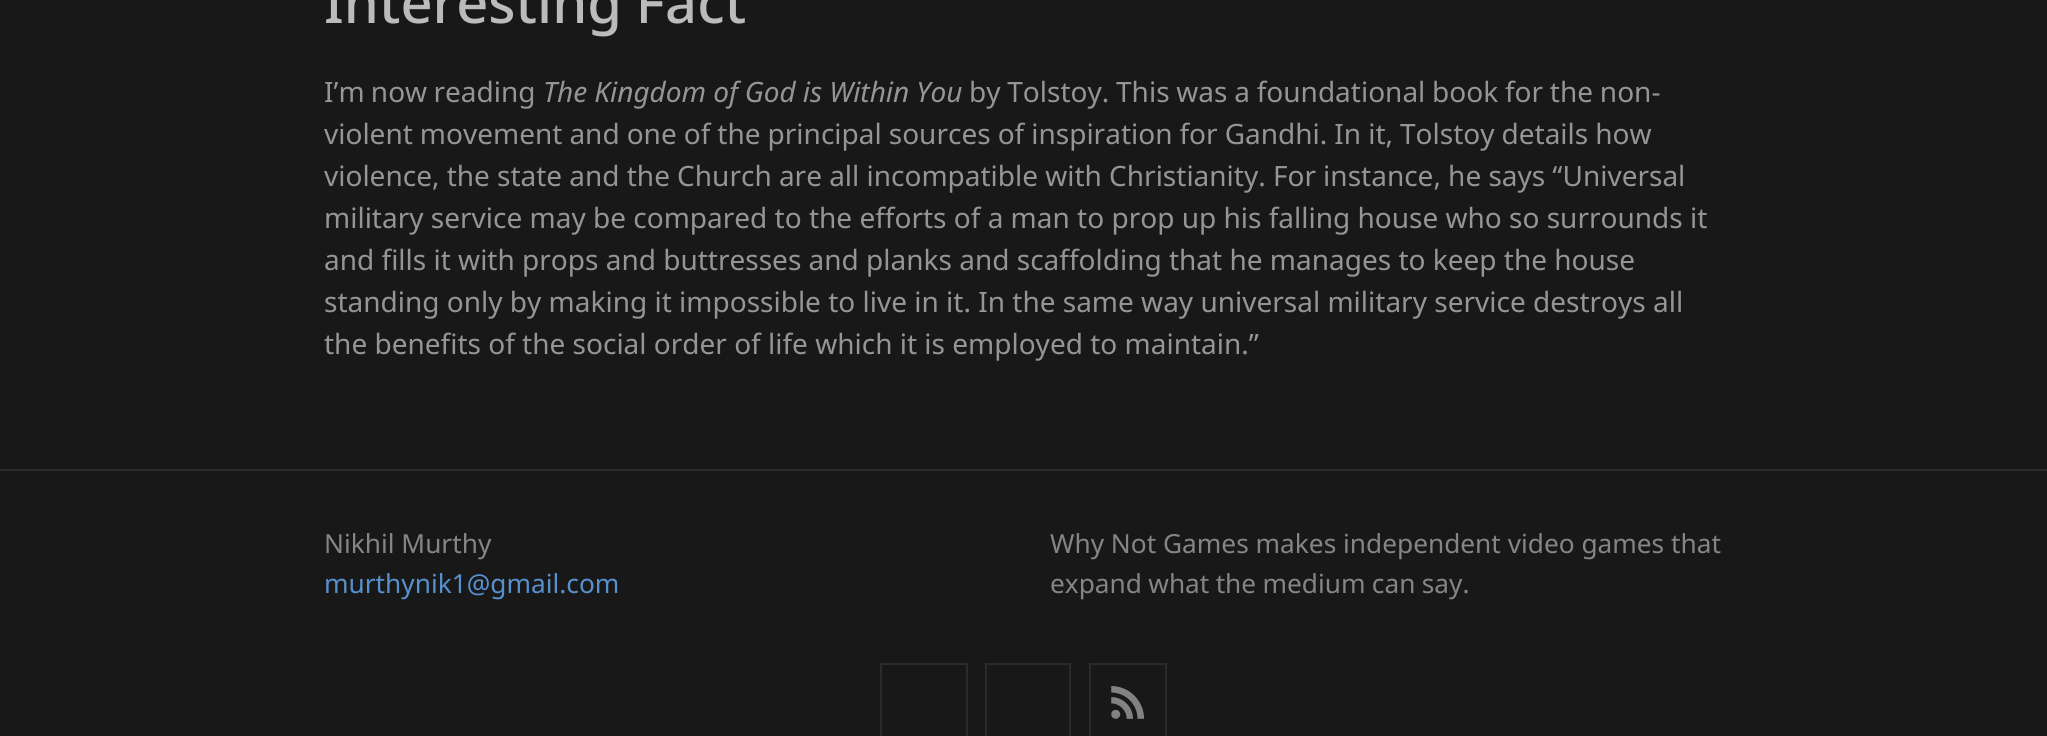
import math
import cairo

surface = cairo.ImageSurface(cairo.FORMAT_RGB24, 2047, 736)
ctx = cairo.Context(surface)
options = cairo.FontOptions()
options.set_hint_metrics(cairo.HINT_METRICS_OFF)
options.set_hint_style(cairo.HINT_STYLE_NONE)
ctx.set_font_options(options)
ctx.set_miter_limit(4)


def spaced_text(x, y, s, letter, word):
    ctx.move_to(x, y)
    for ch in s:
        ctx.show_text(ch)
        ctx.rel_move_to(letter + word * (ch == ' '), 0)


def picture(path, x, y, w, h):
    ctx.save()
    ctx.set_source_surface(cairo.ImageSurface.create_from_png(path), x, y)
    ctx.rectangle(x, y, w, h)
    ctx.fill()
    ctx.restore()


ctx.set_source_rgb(0.094, 0.094, 0.094)
ctx.paint()
ctx.select_font_face("Noto Sans Medium")
ctx.set_font_size(56)
ctx.set_source_rgb(0.733, 0.733, 0.733)
spaced_text(324, 23, "Interesting Fact", 0, -1)
ctx.select_font_face("Noto Sans")
ctx.set_font_size(28)
ctx.set_source_rgb(0.584, 0.584, 0.584)
spaced_text(324, 102, "I’m now reading", 0, -1)
ctx.select_font_face("Noto Sans", cairo.FONT_SLANT_ITALIC)
spaced_text(543, 102, "The Kingdom of God is Within You", 0, -0.25)
ctx.select_font_face("Noto Sans")
spaced_text(969, 102, "by Tolstoy. This was a foundational book for the non-", 0, -0.5)
spaced_text(324, 144, "violent movement and one of the principal sources of inspiration for Gandhi. In it, Tolstoy details how", 0, -0.25)
spaced_text(324, 186, "violence, the state and the Church are all incompatible with Christianity. For instance, he says “Universal", 0, -0.1)
ctx.move_to(324, 228)
ctx.show_text("military service may be compared to the efforts of a man to prop up his falling house who so surrounds it")
ctx.move_to(324, 270)
ctx.show_text("and fills it with props and buttresses and planks and scaffolding that he manages to keep the house")
ctx.move_to(324, 312)
ctx.show_text("standing only by making it impossible to live in it. In the same way universal military service destroys all")
ctx.move_to(324, 354)
ctx.show_text("the benefits of the social order of life which it is employed to maintain.”")
ctx.set_source_rgb(0.169, 0.169, 0.169)
ctx.rectangle(0, 469, 2047, 2)
ctx.fill()
ctx.set_font_size(26.25)
ctx.set_source_rgb(0.522, 0.522, 0.522)
ctx.move_to(324, 553)
ctx.show_text("Nikhil Murthy")
ctx.set_source_rgb(0.337, 0.569, 0.804)
ctx.move_to(324, 593)
ctx.show_text("murthynik1@gmail.com")
ctx.set_source_rgb(0.522, 0.522, 0.522)
ctx.move_to(1050, 553)
ctx.show_text("Why Not Games makes independent video games that")
spaced_text(1050, 593, "expand what the medium can say.", 0, -0.5)
ctx.rectangle(881, 664, 86, 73)
ctx.set_source_rgb(0.169, 0.169, 0.169)
ctx.stroke()
ctx.rectangle(986, 664, 84, 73)
ctx.stroke()
ctx.rectangle(1090, 664, 76, 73)
ctx.stroke()
picture("img1.png", 1111, 686, 33, 33)
surface.write_to_png("page.png")
